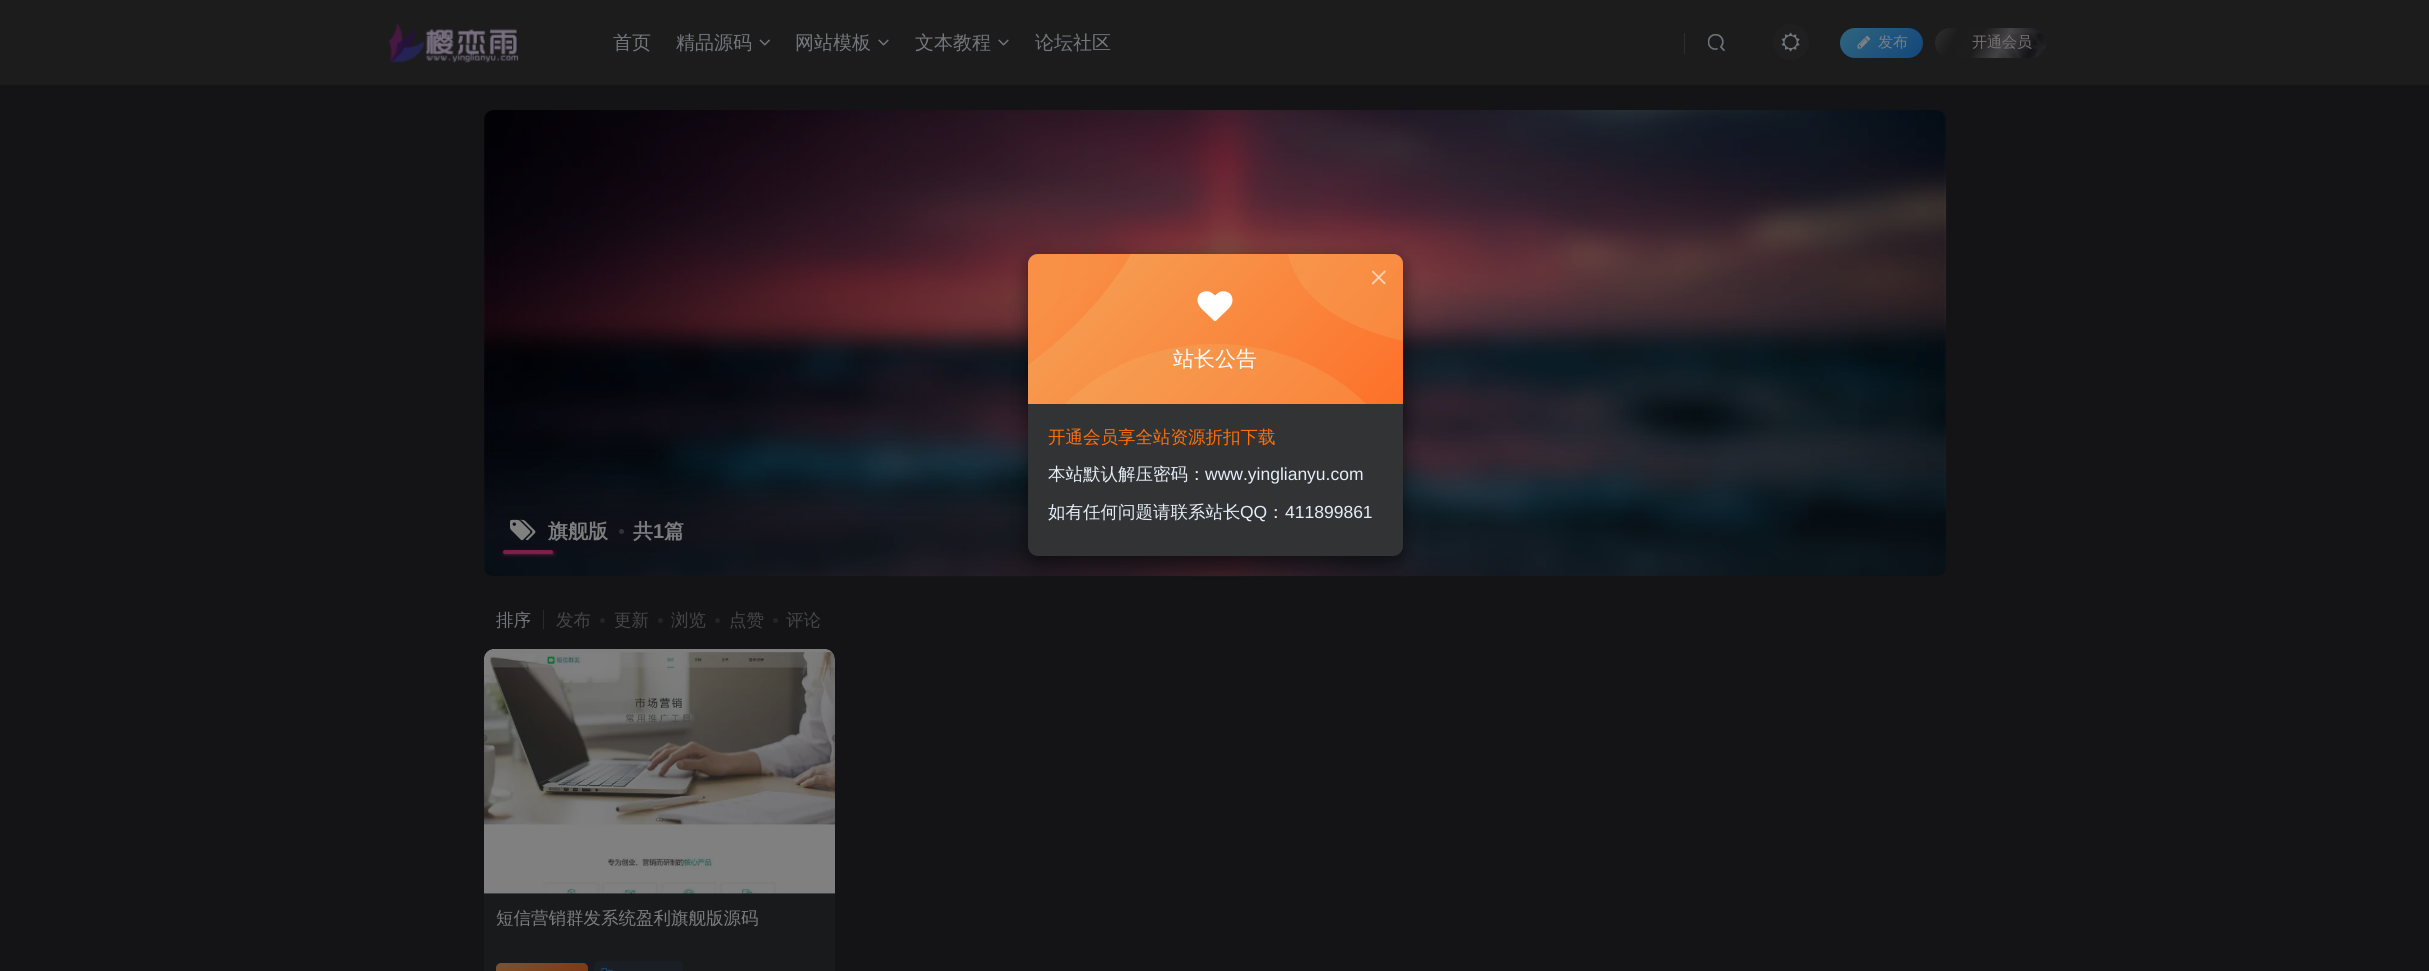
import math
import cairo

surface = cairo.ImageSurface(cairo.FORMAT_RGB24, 2429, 971)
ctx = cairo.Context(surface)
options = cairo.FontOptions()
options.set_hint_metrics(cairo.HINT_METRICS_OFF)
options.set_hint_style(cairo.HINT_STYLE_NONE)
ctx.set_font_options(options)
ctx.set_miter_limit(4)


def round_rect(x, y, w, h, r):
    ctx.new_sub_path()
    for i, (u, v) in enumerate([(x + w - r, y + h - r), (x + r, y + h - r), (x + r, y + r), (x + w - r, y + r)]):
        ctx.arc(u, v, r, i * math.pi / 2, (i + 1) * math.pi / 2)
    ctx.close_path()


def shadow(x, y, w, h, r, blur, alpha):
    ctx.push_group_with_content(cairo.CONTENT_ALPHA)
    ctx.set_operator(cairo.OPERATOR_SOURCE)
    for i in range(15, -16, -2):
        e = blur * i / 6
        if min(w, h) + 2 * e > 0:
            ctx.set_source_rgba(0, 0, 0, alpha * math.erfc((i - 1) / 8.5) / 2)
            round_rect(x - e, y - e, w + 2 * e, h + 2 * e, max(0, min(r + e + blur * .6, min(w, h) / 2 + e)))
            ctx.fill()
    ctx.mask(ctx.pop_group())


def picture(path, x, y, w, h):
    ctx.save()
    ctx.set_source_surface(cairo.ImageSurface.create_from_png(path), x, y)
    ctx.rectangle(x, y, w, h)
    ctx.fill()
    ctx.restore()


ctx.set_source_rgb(0.082, 0.082, 0.09)
ctx.paint()
ctx.set_source_rgb(0.11, 0.11, 0.114)
ctx.rectangle(0, 0, 2429, 85)
ctx.fill()
picture("img1.png", 388, 23, 131, 40)
ctx.select_font_face("WenQuanYi Zen Hei Medium")
ctx.set_font_size(19)
ctx.set_source_rgb(0.451, 0.467, 0.486)
ctx.move_to(613, 49)
ctx.show_text("首页")
ctx.move_to(676, 49)
ctx.show_text("精品源码")
picture("img2.png", 759, 39, 11, 7)
ctx.move_to(795, 49)
ctx.show_text("网站模板")
picture("img3.png", 878, 39, 11, 7)
ctx.move_to(915, 49)
ctx.show_text("文本教程")
picture("img3.png", 998, 39, 11, 7)
ctx.move_to(1035, 49)
ctx.show_text("论坛社区")
ctx.set_source_rgb(0.176, 0.18, 0.188)
ctx.rectangle(1684, 33, 1, 21)
ctx.fill()
picture("img4.png", 1708, 34, 17, 17)
ctx.set_source_rgb(0.122, 0.122, 0.125)
ctx.arc(1791, 42, 18, 0, 2 * math.pi)
ctx.fill()
picture("img5.png", 1781, 32, 19, 20)
gradient = cairo.LinearGradient(1853, 14, 1909, 71)
gradient.add_color_stop_rgba(0.1, 0.176, 0.384, 0.494, 1)
gradient.add_color_stop_rgba(1, 0.075, 0.278, 0.486, 1)
ctx.set_source(gradient)
round_rect(1840, 28, 83, 30, 15)
ctx.fill()
picture("img6.png", 1857, 35, 14, 14)
ctx.set_font_size(15)
ctx.set_source_rgb(0.486, 0.49, 0.494)
ctx.move_to(1878, 47)
ctx.show_text("发布")
gradient = cairo.LinearGradient(2039, 70, 1942, 15)
gradient.add_color_stop_rgba(0, 0.149, 0.153, 0.161, 1)
gradient.add_color_stop_rgba(0.15, 0.082, 0.082, 0.098, 1)
gradient.add_color_stop_rgba(0.4, 0.263, 0.263, 0.271, 1)
gradient.add_color_stop_rgba(0.6, 0.114, 0.114, 0.118, 1)
gradient.add_color_stop_rgba(0.8, 0.114, 0.11, 0.11, 1)
gradient.add_color_stop_rgba(1, 0.184, 0.188, 0.192, 1)
ctx.set_source(gradient)
round_rect(1935, 28, 111, 30, 15)
ctx.fill()
ctx.set_source_rgb(0.161, 0.141, 0.137)
ctx.rectangle(1950, 31, 1, 1)
ctx.fill()
ctx.set_source_rgb(0.463, 0.439, 0.439)
ctx.move_to(1972, 47)
ctx.show_text("开通会员")
picture("img7.png", 1998, 30, 48, 28)
picture("img10.png", 484, 110, 1463, 467)
gradient = cairo.LinearGradient(1215, 576, 1215, 110)
gradient.add_color_stop_rgba(0.11, 0.059, 0.082, 0.098, 0.4)
gradient.add_color_stop_rgba(0.3, 0.059, 0.082, 0.098, 0)
ctx.set_source(gradient)
round_rect(484, 110, 1462, 466, 10)
ctx.fill()
ctx.set_source_rgb(0, 0, 0)
shadow(1028, 260, 375, 303, 10, 9.5, 0.5)
ctx.set_source_rgb(0.196, 0.2, 0.208)
round_rect(1028, 254, 375, 302, 10)
ctx.fill()
gradient = cairo.LinearGradient(1103, 179, 1403, 479)
gradient.add_color_stop_rgba(0.1, 0.961, 0.624, 0.329, 1)
gradient.add_color_stop_rgba(1, 1, 0.412, 0.133, 1)
ctx.set_source(gradient)
ctx.new_path()
ctx.move_to(1038, 254)
ctx.line_to(1393, 254)
ctx.curve_to(1398.5, 254, 1403, 258.5, 1403, 264)
ctx.line_to(1403, 404)
ctx.line_to(1028, 404)
ctx.line_to(1028, 264)
ctx.curve_to(1028, 258.5, 1032.5, 254, 1038, 254)
ctx.close_path()
ctx.fill()
gradient = cairo.LinearGradient(1024, 333, 1407, 717)
gradient.add_color_stop_rgba(0.1, 0.961, 0.624, 0.329, 1)
gradient.add_color_stop_rgba(1, 1, 0.412, 0.133, 1)
ctx.set_source(gradient)
ctx.new_path()
ctx.move_to(1216, 344)
ctx.curve_to(1275, 344, 1329, 367, 1366, 404)
ctx.line_to(1065, 404)
ctx.curve_to(1102, 367, 1156, 344, 1216, 344)
ctx.close_path()
ctx.fill()
gradient = cairo.LinearGradient(670, 213, 1204, 317)
gradient.add_color_stop_rgba(0.1, 0.961, 0.624, 0.329, 0.4)
gradient.add_color_stop_rgba(1, 1, 0.412, 0.133, 0.4)
ctx.set_source(gradient)
ctx.new_path()
ctx.move_to(1038, 254)
ctx.line_to(1131, 254)
ctx.curve_to(1109, 292, 1074, 331, 1028, 365)
ctx.line_to(1028, 264)
ctx.curve_to(1028, 258, 1032, 254, 1038, 254)
ctx.close_path()
ctx.fill()
gradient = cairo.LinearGradient(1303, -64, 2079, 314)
gradient.add_color_stop_rgba(0.1, 0.961, 0.624, 0.329, 0.6)
gradient.add_color_stop_rgba(1, 1, 0.412, 0.133, 0.6)
ctx.set_source(gradient)
ctx.new_path()
ctx.move_to(1403, 341)
ctx.curve_to(1356, 330, 1300, 306, 1288, 254)
ctx.line_to(1393, 254)
ctx.curve_to(1399, 254, 1403, 258, 1403, 264)
ctx.close_path()
ctx.fill()
picture("img8.png", 1371, 270, 15, 15)
picture("img9.png", 1197, 291, 36, 31)
ctx.set_font_size(21)
ctx.set_source_rgb(1, 1, 1)
ctx.move_to(1173, 366)
ctx.show_text("站长公告")
ctx.set_font_size(17.5)
ctx.set_source_rgb(1, 0.435, 0.024)
ctx.move_to(1048, 443)
ctx.show_text("开通会员享全站资源折扣下载")
ctx.set_source_rgb(0.898, 0.933, 0.969)
ctx.move_to(1048, 480)
ctx.show_text("本站默认解压密码：")
ctx.select_font_face("Liberation Sans")
ctx.move_to(1205, 480)
ctx.show_text("www.yinglianyu.com")
ctx.select_font_face("WenQuanYi Zen Hei Medium")
ctx.move_to(1048, 518)
ctx.show_text("如有任何问题请联系站长")
ctx.select_font_face("Liberation Sans")
ctx.move_to(1240, 518)
ctx.show_text("QQ")
ctx.select_font_face("WenQuanYi Zen Hei Medium")
ctx.move_to(1267, 518)
ctx.show_text("：")
ctx.select_font_face("Liberation Sans")
ctx.move_to(1285, 518)
ctx.show_text("411899861")
picture("img11.png", 510, 519, 26, 22)
ctx.select_font_face("WenQuanYi Zen Hei", cairo.FONT_SLANT_NORMAL, cairo.FONT_WEIGHT_BOLD)
ctx.set_font_size(20)
ctx.set_source_rgb(0.486, 0.49, 0.494)
ctx.move_to(548, 538)
ctx.show_text("旗舰版")
ctx.set_source_rgb(0.192, 0.192, 0.216)
ctx.new_path()
ctx.arc(621.5, 531.5, 2.5, 0, 2 * math.pi)
ctx.fill()
ctx.set_source_rgb(0.486, 0.49, 0.494)
ctx.move_to(633, 538)
ctx.show_text("共")
ctx.select_font_face("Liberation Sans", cairo.FONT_SLANT_NORMAL, cairo.FONT_WEIGHT_BOLD)
ctx.move_to(653, 538)
ctx.show_text("1")
ctx.select_font_face("WenQuanYi Zen Hei", cairo.FONT_SLANT_NORMAL, cairo.FONT_WEIGHT_BOLD)
ctx.move_to(664, 538)
ctx.show_text("篇")
ctx.set_source_rgb(0.471, 0.133, 0.29)
shadow(505, 553, 48, 1, 0.5, 2, 1)
ctx.set_source_rgb(0.471, 0.133, 0.29)
round_rect(503, 550, 50, 4, 2)
ctx.fill()
ctx.select_font_face("WenQuanYi Zen Hei Medium")
ctx.set_font_size(17.5)
ctx.set_source_rgb(0.451, 0.467, 0.486)
ctx.move_to(496, 626)
ctx.show_text("排序")
ctx.set_source_rgb(0.157, 0.161, 0.169)
ctx.rectangle(543, 610, 1, 19)
ctx.fill()
ctx.set_source_rgb(0.267, 0.271, 0.282)
ctx.move_to(556, 626)
ctx.show_text("发布")
ctx.set_source_rgb(0.137, 0.141, 0.145)
ctx.new_path()
ctx.arc(602.5, 620.5, 2.5, 0, 2 * math.pi)
ctx.fill()
ctx.set_source_rgb(0.267, 0.271, 0.282)
ctx.move_to(614, 626)
ctx.show_text("更新")
ctx.set_source_rgb(0.137, 0.141, 0.145)
ctx.new_path()
ctx.arc(660.5, 620.5, 2.5, 0, 2 * math.pi)
ctx.fill()
ctx.set_source_rgb(0.267, 0.271, 0.282)
ctx.move_to(671, 626)
ctx.show_text("浏览")
ctx.set_source_rgb(0.137, 0.141, 0.145)
ctx.new_path()
ctx.arc(717.5, 620.5, 2.5, 0, 2 * math.pi)
ctx.fill()
ctx.set_source_rgb(0.267, 0.271, 0.282)
ctx.move_to(729, 626)
ctx.show_text("点赞")
ctx.set_source_rgb(0.137, 0.141, 0.145)
ctx.new_path()
ctx.arc(775.5, 620.5, 2.5, 0, 2 * math.pi)
ctx.fill()
ctx.set_source_rgb(0.267, 0.271, 0.282)
ctx.move_to(786, 626)
ctx.show_text("评论")
ctx.set_source_rgb(0.098, 0.102, 0.106)
round_rect(484, 649, 351, 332, 10)
ctx.fill()
picture("img12.png", 484, 649, 351, 245)
ctx.set_source_rgb(0.486, 0.49, 0.494)
ctx.move_to(496, 924)
ctx.show_text("短信营销群发系统盈利旗舰版源码")
gradient = cairo.LinearGradient(513, 946, 571, 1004)
gradient.add_color_stop_rgba(0.1, 0.482, 0.314, 0.165, 1)
gradient.add_color_stop_rgba(1, 0.502, 0.208, 0.067, 1)
ctx.set_source(gradient)
round_rect(496, 963, 92, 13, 5)
ctx.fill()
ctx.set_source_rgb(0.098, 0.122, 0.141)
round_rect(594, 961, 89, 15, 5)
ctx.fill()
picture("img13.png", 601, 967, 12, 4)
surface.write_to_png("page.png")
